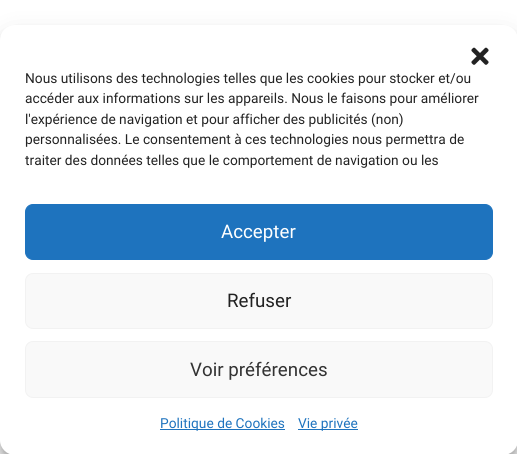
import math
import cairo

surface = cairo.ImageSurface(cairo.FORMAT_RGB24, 517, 454)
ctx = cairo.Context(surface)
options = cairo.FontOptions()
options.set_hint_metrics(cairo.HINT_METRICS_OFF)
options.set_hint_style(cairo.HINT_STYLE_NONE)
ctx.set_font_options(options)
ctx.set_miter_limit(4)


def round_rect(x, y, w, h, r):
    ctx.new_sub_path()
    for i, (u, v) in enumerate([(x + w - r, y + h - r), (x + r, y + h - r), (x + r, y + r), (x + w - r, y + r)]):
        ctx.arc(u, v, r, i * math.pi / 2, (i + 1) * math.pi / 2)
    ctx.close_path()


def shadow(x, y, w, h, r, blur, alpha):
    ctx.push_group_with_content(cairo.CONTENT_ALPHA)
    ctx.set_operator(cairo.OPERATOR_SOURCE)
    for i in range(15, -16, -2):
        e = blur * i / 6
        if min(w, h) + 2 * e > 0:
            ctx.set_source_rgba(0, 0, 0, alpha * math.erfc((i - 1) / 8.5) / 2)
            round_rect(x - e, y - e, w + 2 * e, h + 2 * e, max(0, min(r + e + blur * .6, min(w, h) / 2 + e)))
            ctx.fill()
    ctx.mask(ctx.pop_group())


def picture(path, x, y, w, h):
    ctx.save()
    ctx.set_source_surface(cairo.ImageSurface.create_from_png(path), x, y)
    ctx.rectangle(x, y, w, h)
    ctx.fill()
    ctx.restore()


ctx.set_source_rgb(1, 1, 1)
ctx.paint()
ctx.set_source_rgb(0, 0, 0)
shadow(0, 33, 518, 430, 15, 4, 0.23)
shadow(0, 38, 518, 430, 15, 12.5, 0.19)
ctx.set_source_rgb(1, 1, 1)
round_rect(0, 25, 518, 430, 15)
ctx.fill()
picture("img1.png", 471, 47, 18, 18)
ctx.select_font_face("Roboto")
ctx.set_font_size(13.75)
ctx.set_source_rgb(0.133, 0.133, 0.133)
ctx.move_to(25, 83)
ctx.show_text("Nous utilisons des technologies telles que les cookies pour stocker et/ou")
ctx.move_to(25, 103)
ctx.show_text("accéder aux informations sur les appareils. Nous le faisons pour améliorer")
ctx.move_to(25, 124)
ctx.show_text("l'expérience de navigation et pour afficher des publicités (non)")
ctx.move_to(25, 144)
ctx.show_text("personnalisées. Le consentement à ces technologies nous permettra de")
ctx.move_to(25, 165)
ctx.show_text("traiter des données telles que le comportement de navigation ou les")
ctx.set_source_rgb(0.118, 0.451, 0.745)
round_rect(25.5, 204.5, 467, 55, 7.5)
ctx.fill_preserve()
ctx.set_line_width(1)
ctx.stroke()
ctx.set_font_size(18.75)
ctx.set_source_rgb(1, 1, 1)
ctx.move_to(221, 238)
ctx.show_text("Accepter")
ctx.set_source_rgb(0.976, 0.976, 0.976)
round_rect(25.5, 273.5, 467, 55, 7.5)
ctx.fill_preserve()
ctx.set_source_rgb(0.949, 0.949, 0.949)
ctx.stroke()
ctx.set_source_rgb(0.133, 0.133, 0.133)
ctx.move_to(227, 307)
ctx.show_text("Refuser")
ctx.set_source_rgb(0.976, 0.976, 0.976)
round_rect(25.5, 341.5, 467, 56, 7.5)
ctx.fill_preserve()
ctx.set_source_rgb(0.949, 0.949, 0.949)
ctx.stroke()
ctx.set_source_rgb(0.2, 0.2, 0.2)
ctx.move_to(190, 376)
ctx.show_text("Voir préférences")
ctx.set_source_rgb(0.118, 0.451, 0.745)
ctx.rectangle(160, 429, 125, 1)
ctx.fill()
ctx.set_font_size(13.75)
ctx.move_to(160, 428)
ctx.show_text("Politique de Cookies")
ctx.rectangle(298, 429, 60, 1)
ctx.fill()
ctx.move_to(298, 428)
ctx.show_text("Vie privée")
surface.write_to_png("page.png")
